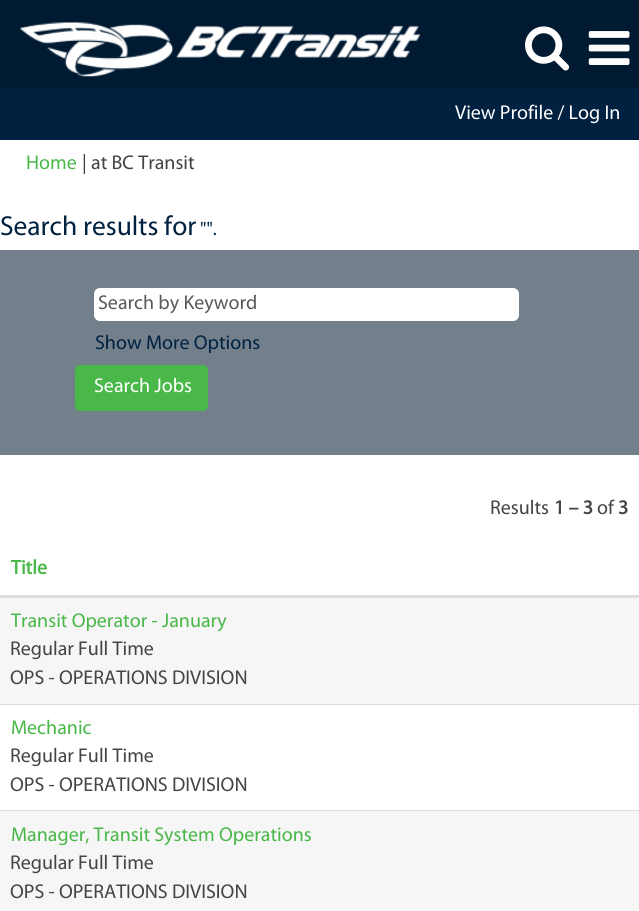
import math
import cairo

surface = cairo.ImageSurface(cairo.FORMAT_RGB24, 639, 911)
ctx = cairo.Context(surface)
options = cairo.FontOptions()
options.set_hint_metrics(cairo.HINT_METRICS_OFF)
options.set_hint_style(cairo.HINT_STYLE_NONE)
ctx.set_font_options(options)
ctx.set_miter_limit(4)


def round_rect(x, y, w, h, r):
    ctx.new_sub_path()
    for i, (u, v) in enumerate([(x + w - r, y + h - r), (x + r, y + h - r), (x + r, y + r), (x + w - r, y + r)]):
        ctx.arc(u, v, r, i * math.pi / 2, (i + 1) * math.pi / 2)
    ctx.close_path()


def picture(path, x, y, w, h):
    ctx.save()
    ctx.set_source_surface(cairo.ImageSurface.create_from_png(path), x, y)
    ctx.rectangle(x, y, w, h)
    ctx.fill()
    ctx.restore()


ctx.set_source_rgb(0, 0.102, 0.192)
ctx.paint()
picture("img1.png", 20, 22, 400, 55)
picture("img2.png", 525, 26, 45, 45)
picture("img3.png", 588, 31, 42, 34)
ctx.set_source_rgb(0, 0.129, 0.251)
ctx.rectangle(0, 88, 639, 52)
ctx.fill()
ctx.select_font_face("Myriad")
ctx.set_font_size(20)
ctx.set_source_rgb(1, 1, 1)
ctx.move_to(455, 119)
ctx.show_text("View Profile / Log In")
ctx.rectangle(0, 140, 639, 670)
ctx.fill()
ctx.set_source_rgb(0.286, 0.722, 0.282)
ctx.move_to(26, 169)
ctx.show_text("Home")
ctx.set_source_rgb(0.267, 0.267, 0.267)
ctx.move_to(82, 169)
ctx.show_text("| at BC Transit")
ctx.set_font_size(27.5)
ctx.set_source_rgb(0, 0.129, 0.251)
ctx.move_to(0, 235)
ctx.show_text("Search results for")
ctx.set_font_size(19)
ctx.move_to(200, 235)
ctx.show_text("\"\".")
ctx.set_source_rgb(0.451, 0.502, 0.545)
ctx.rectangle(0, 250, 639, 205)
ctx.fill()
ctx.set_source_rgb(1, 1, 1)
round_rect(94, 288, 425, 33, 6)
ctx.fill()
ctx.set_font_size(20)
ctx.set_source_rgb(0.349, 0.349, 0.349)
ctx.move_to(98, 309)
ctx.show_text("Search by Keyword")
ctx.set_source_rgb(0, 0.129, 0.251)
ctx.move_to(95, 349)
ctx.show_text("Show More Options")
ctx.set_source_rgb(0.286, 0.722, 0.282)
round_rect(75, 365, 133, 46, 5)
ctx.fill()
ctx.set_source_rgb(1, 1, 1)
ctx.move_to(94, 392)
ctx.show_text("Search Jobs")
ctx.set_source_rgb(0.267, 0.267, 0.267)
ctx.move_to(490, 514)
ctx.show_text("Results")
ctx.select_font_face("Myriad", cairo.FONT_SLANT_NORMAL, cairo.FONT_WEIGHT_BOLD)
ctx.move_to(554, 514)
ctx.show_text("1 – 3")
ctx.select_font_face("Myriad")
ctx.move_to(597, 514)
ctx.show_text("of")
ctx.select_font_face("Myriad", cairo.FONT_SLANT_NORMAL, cairo.FONT_WEIGHT_BOLD)
ctx.move_to(618, 514)
ctx.show_text("3")
ctx.set_source_rgb(0.867, 0.867, 0.867)
ctx.rectangle(0, 595, 639, 3)
ctx.fill()
ctx.set_source_rgb(0.286, 0.722, 0.282)
ctx.move_to(11, 574)
ctx.show_text("Title")
ctx.set_source_rgb(0.961, 0.961, 0.961)
ctx.rectangle(0, 598, 639, 106)
ctx.fill()
ctx.select_font_face("Myriad")
ctx.set_source_rgb(0.286, 0.722, 0.282)
ctx.move_to(11, 627)
ctx.show_text("Transit Operator - January")
ctx.set_source_rgb(0.267, 0.267, 0.267)
ctx.move_to(10, 655)
ctx.show_text("Regular Full Time")
ctx.move_to(10, 684)
ctx.show_text("OPS - OPERATIONS DIVISION")
ctx.set_source_rgb(0.867, 0.867, 0.867)
ctx.rectangle(0, 704, 639, 1)
ctx.fill()
ctx.set_source_rgb(0.286, 0.722, 0.282)
ctx.move_to(11, 734)
ctx.show_text("Mechanic")
ctx.set_source_rgb(0.267, 0.267, 0.267)
ctx.move_to(10, 762)
ctx.show_text("Regular Full Time")
ctx.move_to(10, 791)
ctx.show_text("OPS - OPERATIONS DIVISION")
ctx.set_source_rgb(0.961, 0.961, 0.961)
ctx.rectangle(0, 811, 639, 100)
ctx.fill()
ctx.set_source_rgb(0.867, 0.867, 0.867)
ctx.rectangle(0, 810, 639, 1)
ctx.fill()
ctx.set_source_rgb(0.286, 0.722, 0.282)
ctx.move_to(11, 841)
ctx.show_text("Manager, Transit System Operations")
ctx.set_source_rgb(0.267, 0.267, 0.267)
ctx.move_to(10, 869)
ctx.show_text("Regular Full Time")
ctx.move_to(10, 898)
ctx.show_text("OPS - OPERATIONS DIVISION")
surface.write_to_png("page.png")
